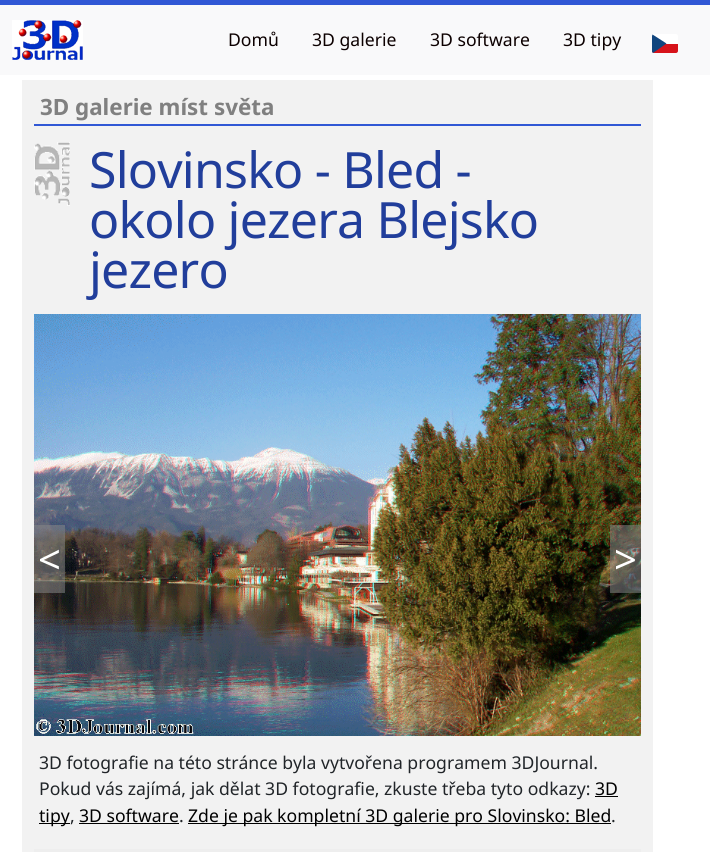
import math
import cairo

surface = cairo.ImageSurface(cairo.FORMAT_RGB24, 710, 852)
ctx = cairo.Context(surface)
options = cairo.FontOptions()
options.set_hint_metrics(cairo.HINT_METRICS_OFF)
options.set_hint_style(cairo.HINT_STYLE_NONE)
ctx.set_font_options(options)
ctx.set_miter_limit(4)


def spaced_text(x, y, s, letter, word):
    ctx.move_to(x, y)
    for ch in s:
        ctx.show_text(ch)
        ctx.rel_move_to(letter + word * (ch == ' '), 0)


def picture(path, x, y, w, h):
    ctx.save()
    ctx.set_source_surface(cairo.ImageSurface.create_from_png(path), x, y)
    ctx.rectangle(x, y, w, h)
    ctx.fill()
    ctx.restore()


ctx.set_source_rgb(1, 1, 1)
ctx.paint()
ctx.set_source_rgb(0.973, 0.976, 0.98)
ctx.rectangle(0, 5, 710, 70)
ctx.fill()
ctx.set_source_rgb(0.192, 0.345, 0.835)
ctx.rectangle(0, 0, 710, 5)
ctx.fill()
picture("img1.png", 12, 20, 71, 40)
ctx.select_font_face("Noto Sans")
ctx.set_font_size(17.6)
ctx.set_source_rgb(0.047, 0, 0)
ctx.move_to(228, 46)
ctx.show_text("Domů")
ctx.move_to(312, 46)
ctx.show_text("3D galerie")
ctx.move_to(430, 46)
ctx.show_text("3D software")
ctx.move_to(563, 46)
ctx.show_text("3D tipy")
ctx.set_source_rgb(1, 1, 1)
ctx.new_path()
ctx.move_to(654, 34)
ctx.line_to(676, 34)
ctx.curve_to(677, 34, 678, 35, 678, 36)
ctx.line_to(678, 44)
ctx.line_to(652, 44)
ctx.line_to(652, 36)
ctx.curve_to(652, 35, 653, 34, 654, 34)
ctx.close_path()
ctx.fill()
ctx.set_source_rgb(0.843, 0.078, 0.102)
ctx.new_path()
ctx.move_to(652, 44)
ctx.line_to(678, 44)
ctx.line_to(678, 51)
ctx.curve_to(678, 52, 677, 53, 676, 53)
ctx.line_to(654, 53)
ctx.curve_to(653, 53, 652, 52, 652, 51)
ctx.close_path()
ctx.fill()
ctx.set_source_rgb(0.067, 0.271, 0.494)
ctx.new_path()
ctx.move_to(666.5, 43.5)
ctx.line_to(653, 53)
ctx.curve_to(652.5, 52.5, 652, 52, 652, 51)
ctx.line_to(652, 36)
ctx.curve_to(652, 35.5, 652.5, 35, 652.5, 34.5)
ctx.close_path()
ctx.fill()
ctx.set_source_rgb(0.949, 0.949, 0.949)
ctx.rectangle(22, 80, 631, 772)
ctx.fill()
ctx.set_source_rgb(0.192, 0.345, 0.835)
ctx.rectangle(34, 124, 607, 2)
ctx.fill()
ctx.select_font_face("Noto Sans", cairo.FONT_SLANT_NORMAL, cairo.FONT_WEIGHT_BOLD)
ctx.set_font_size(22.4)
ctx.set_source_rgb(0.502, 0.502, 0.502)
ctx.move_to(40, 115)
ctx.show_text("3D galerie míst světa")
picture("img2.png", 34, 142, 36, 64)
ctx.select_font_face("Noto Sans")
ctx.set_font_size(50)
ctx.set_source_rgb(0.129, 0.243, 0.608)
spaced_text(89, 188, "Slovinsko - Bled -", -0.8, 0)
spaced_text(89, 238, "okolo jezera Blejsko", -0.8, 0)
spaced_text(89, 288, "jezero", -0.8, 0)
picture("img3.png", 34, 314, 607, 422)
ctx.set_source_rgba(0.533, 0.533, 0.533, 0.53)
ctx.rectangle(34, 525, 31, 68)
ctx.fill()
ctx.set_font_size(40)
ctx.set_source_rgb(1, 1, 1)
ctx.move_to(38, 574)
ctx.show_text("<")
ctx.set_source_rgba(0.533, 0.533, 0.533, 0.53)
ctx.rectangle(610, 525, 31, 68)
ctx.fill()
ctx.set_source_rgb(1, 1, 1)
ctx.move_to(614, 574)
ctx.show_text(">")
ctx.set_font_size(17.6)
ctx.set_source_rgb(0.129, 0.145, 0.161)
ctx.move_to(39, 769)
ctx.show_text("3D fotografie na této stránce byla vytvořena programem 3DJournal.")
ctx.move_to(39, 795)
ctx.show_text("Pokud vás zajímá, jak dělat 3D fotografie, zkuste třeba tyto odkazy:")
ctx.set_source_rgb(0, 0, 0)
ctx.move_to(595, 795)
ctx.show_text("3D")
ctx.rectangle(595, 796, 23, 1)
ctx.fill()
ctx.rectangle(39, 823, 31, 1)
ctx.fill()
ctx.move_to(39, 822)
ctx.show_text("tipy")
ctx.set_source_rgb(0.129, 0.145, 0.161)
ctx.move_to(70, 822)
ctx.show_text(",")
ctx.set_source_rgb(0, 0, 0)
ctx.move_to(79, 822)
ctx.show_text("3D software")
ctx.rectangle(79, 823, 100, 1)
ctx.fill()
ctx.set_source_rgb(0.129, 0.145, 0.161)
ctx.move_to(179, 822)
ctx.show_text(".")
ctx.set_source_rgb(0, 0, 0)
ctx.rectangle(188, 823, 423, 1)
ctx.fill()
ctx.move_to(188, 822)
ctx.show_text("Zde je pak kompletní 3D galerie pro Slovinsko: Bled")
ctx.set_source_rgb(0.129, 0.145, 0.161)
ctx.move_to(611, 822)
ctx.show_text(".")
ctx.set_source_rgb(0.933, 0.933, 0.933)
ctx.rectangle(34, 849, 607, 3)
ctx.fill()
surface.write_to_png("page.png")
